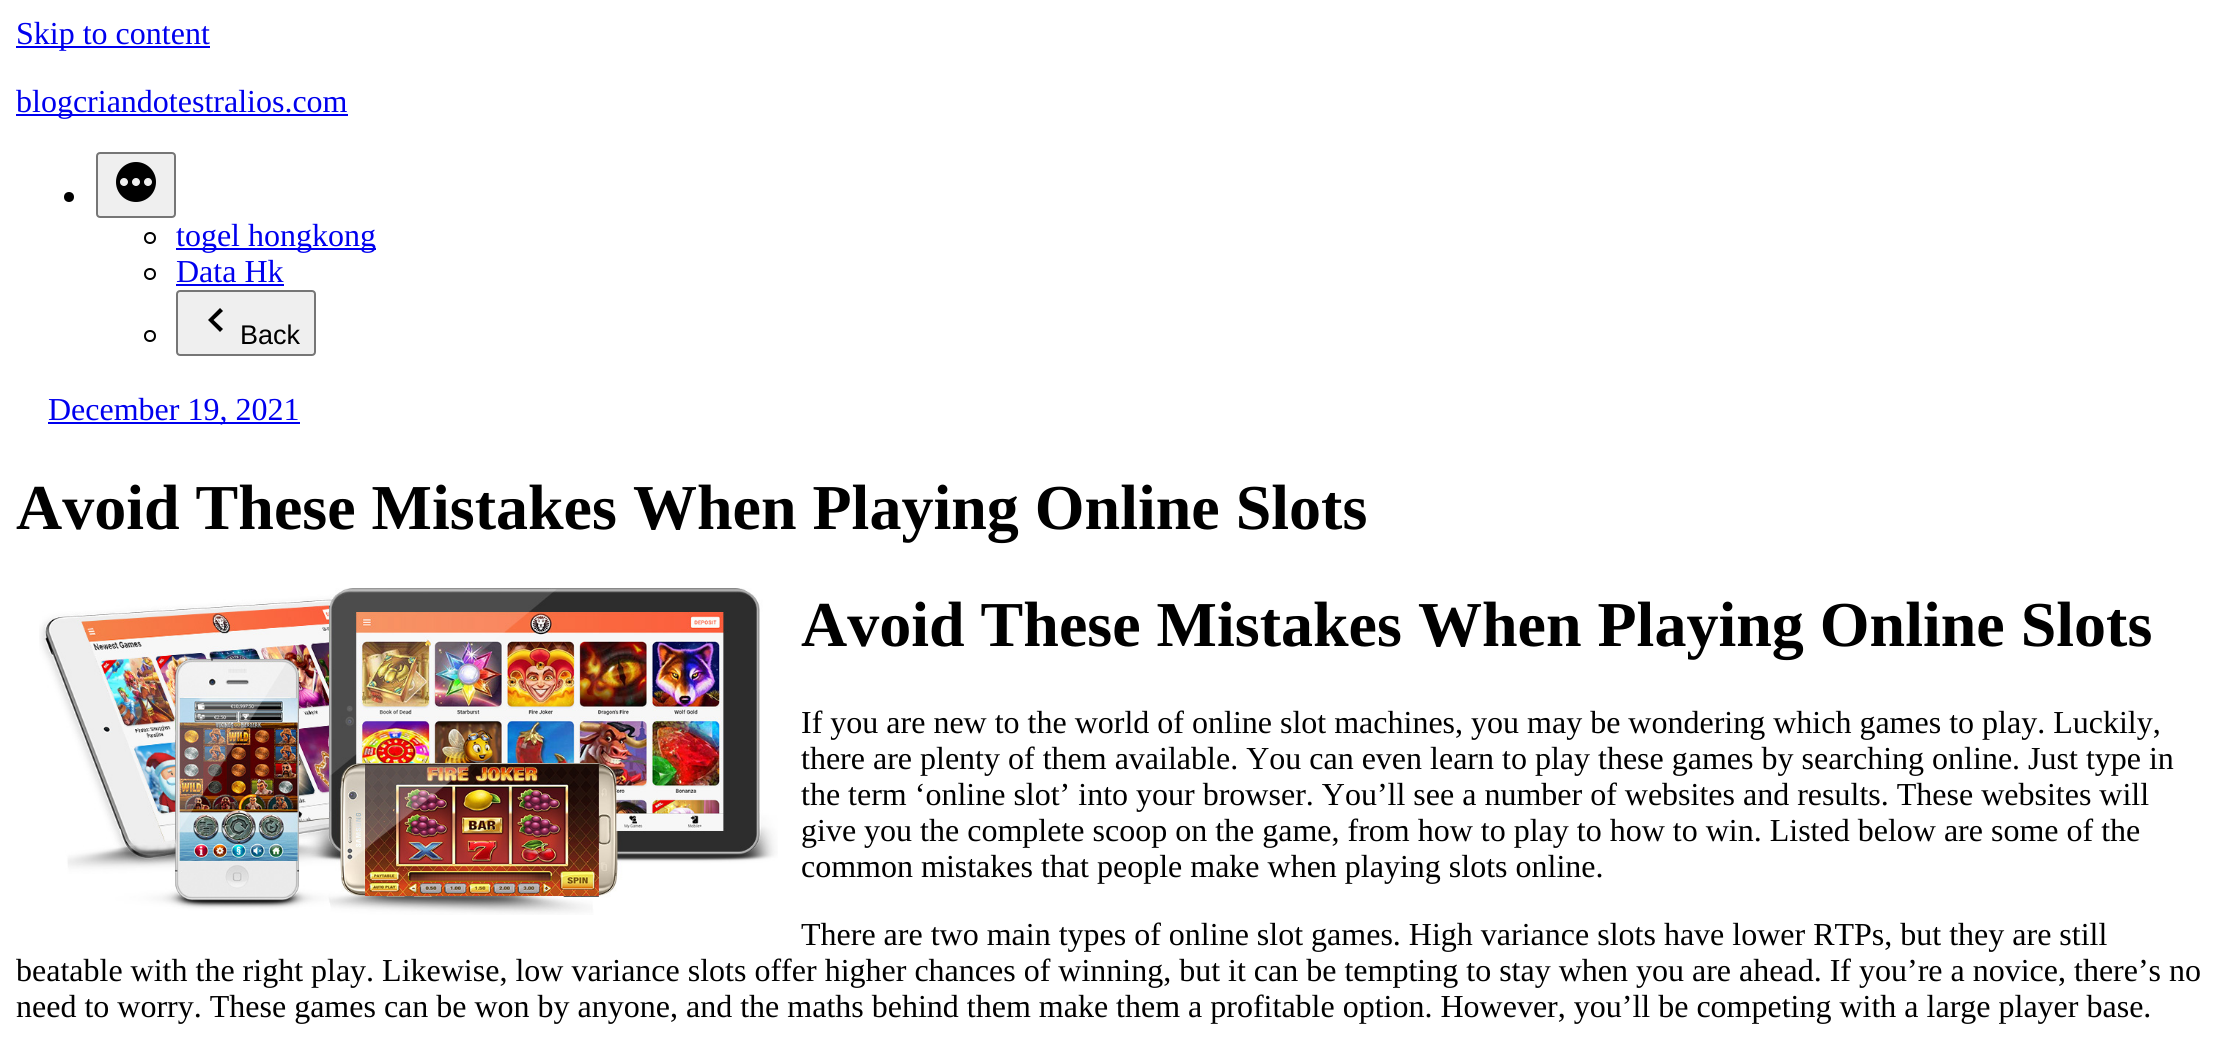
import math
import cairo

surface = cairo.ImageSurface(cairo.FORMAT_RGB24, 2224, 1040)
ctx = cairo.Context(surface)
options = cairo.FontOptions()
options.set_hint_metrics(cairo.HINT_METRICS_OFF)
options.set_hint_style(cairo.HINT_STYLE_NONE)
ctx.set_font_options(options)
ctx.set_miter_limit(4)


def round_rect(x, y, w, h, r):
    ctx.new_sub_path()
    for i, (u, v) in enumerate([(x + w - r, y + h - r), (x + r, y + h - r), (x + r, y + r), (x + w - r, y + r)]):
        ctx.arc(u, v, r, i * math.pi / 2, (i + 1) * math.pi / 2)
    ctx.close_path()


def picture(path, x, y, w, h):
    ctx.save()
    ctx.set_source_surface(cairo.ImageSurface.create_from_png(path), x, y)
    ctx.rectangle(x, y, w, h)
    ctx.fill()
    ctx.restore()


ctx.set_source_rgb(1, 1, 1)
ctx.paint()
ctx.set_source_rgb(0, 0, 0.933)
ctx.rectangle(16, 46, 194, 2)
ctx.fill()
ctx.select_font_face("Liberation Serif")
ctx.set_font_size(32)
ctx.move_to(16, 44)
ctx.show_text("Skip to content")
ctx.rectangle(16, 114, 332, 2)
ctx.fill()
ctx.move_to(16, 112)
ctx.show_text("blogcriandotestralios.com")
ctx.set_source_rgb(0, 0, 0)
ctx.new_path()
ctx.arc(69, 197, 5, 0, 2 * math.pi)
ctx.fill()
ctx.set_source_rgb(0.937, 0.937, 0.937)
round_rect(97, 153, 78, 64, 3)
ctx.fill_preserve()
ctx.set_source_rgb(0.463, 0.463, 0.463)
ctx.stroke()
picture("img1.png", 116, 162, 40, 40)
ctx.arc(150, 238, 5, 0, 2 * math.pi)
ctx.set_source_rgb(0, 0, 0)
ctx.stroke()
ctx.set_source_rgb(0, 0, 0.933)
ctx.rectangle(176, 248, 200, 2)
ctx.fill()
ctx.move_to(176, 246)
ctx.show_text("togel hongkong")
ctx.new_path()
ctx.arc(150, 274, 5, 0, 2 * math.pi)
ctx.set_source_rgb(0, 0, 0)
ctx.stroke()
ctx.set_source_rgb(0, 0, 0.933)
ctx.move_to(176, 282)
ctx.show_text("Data Hk")
ctx.rectangle(176, 284, 108, 2)
ctx.fill()
ctx.arc(150, 336, 5, 0, 2 * math.pi)
ctx.set_source_rgb(0, 0, 0)
ctx.stroke()
ctx.set_source_rgb(0.937, 0.937, 0.937)
round_rect(177, 291, 138, 64, 3)
ctx.fill_preserve()
ctx.set_source_rgb(0.463, 0.463, 0.463)
ctx.stroke()
ctx.set_source_rgb(0, 0, 0)
ctx.new_path()
ctx.move_to(223, 311)
ctx.line_to(220, 308)
ctx.line_to(208, 320)
ctx.line_to(220, 332)
ctx.line_to(223, 329)
ctx.line_to(213.5, 320)
ctx.close_path()
ctx.fill()
ctx.select_font_face("Liberation Sans")
ctx.set_font_size(27)
ctx.move_to(240, 344)
ctx.show_text("Back")
ctx.set_source_rgb(0, 0, 0.933)
ctx.rectangle(48, 422, 252, 2)
ctx.fill()
ctx.select_font_face("Liberation Serif")
ctx.set_font_size(32)
ctx.move_to(48, 420)
ctx.show_text("December 19, 2021")
ctx.select_font_face("Liberation Serif", cairo.FONT_SLANT_NORMAL, cairo.FONT_WEIGHT_BOLD)
ctx.set_font_size(64)
ctx.set_source_rgb(0, 0, 0)
ctx.move_to(16, 529)
ctx.show_text("Avoid These Mistakes When Playing Online Slots")
picture("img2.png", 39, 588, 739, 327)
ctx.move_to(801, 646)
ctx.show_text("Avoid These Mistakes When Playing Online Slots")
ctx.select_font_face("Liberation Serif")
ctx.set_font_size(32)
ctx.move_to(801, 733)
ctx.show_text("If you are new to the world of online slot machines, you may be wondering which games to play. Luckily,")
ctx.move_to(801, 769)
ctx.show_text("there are plenty of them available. You can even learn to play these games by searching online. Just type in")
ctx.move_to(801, 805)
ctx.show_text("the term ‘online slot’ into your browser. You’ll see a number of websites and results. These websites will")
ctx.move_to(801, 841)
ctx.show_text("give you the complete scoop on the game, from how to play to how to win. Listed below are some of the")
ctx.move_to(801, 877)
ctx.show_text("common mistakes that people make when playing slots online.")
ctx.move_to(801, 945)
ctx.show_text("There are two main types of online slot games. High variance slots have lower RTPs, but they are still")
ctx.move_to(16, 981)
ctx.show_text("beatable with the right play. Likewise, low variance slots offer higher chances of winning, but it can be tempting to stay when you are ahead. If you’re a novice, there’s no")
ctx.move_to(16, 1017)
ctx.show_text("need to worry. These games can be won by anyone, and the maths behind them make them a profitable option. However, you’ll be competing with a large player base.")
surface.write_to_png("page.png")
